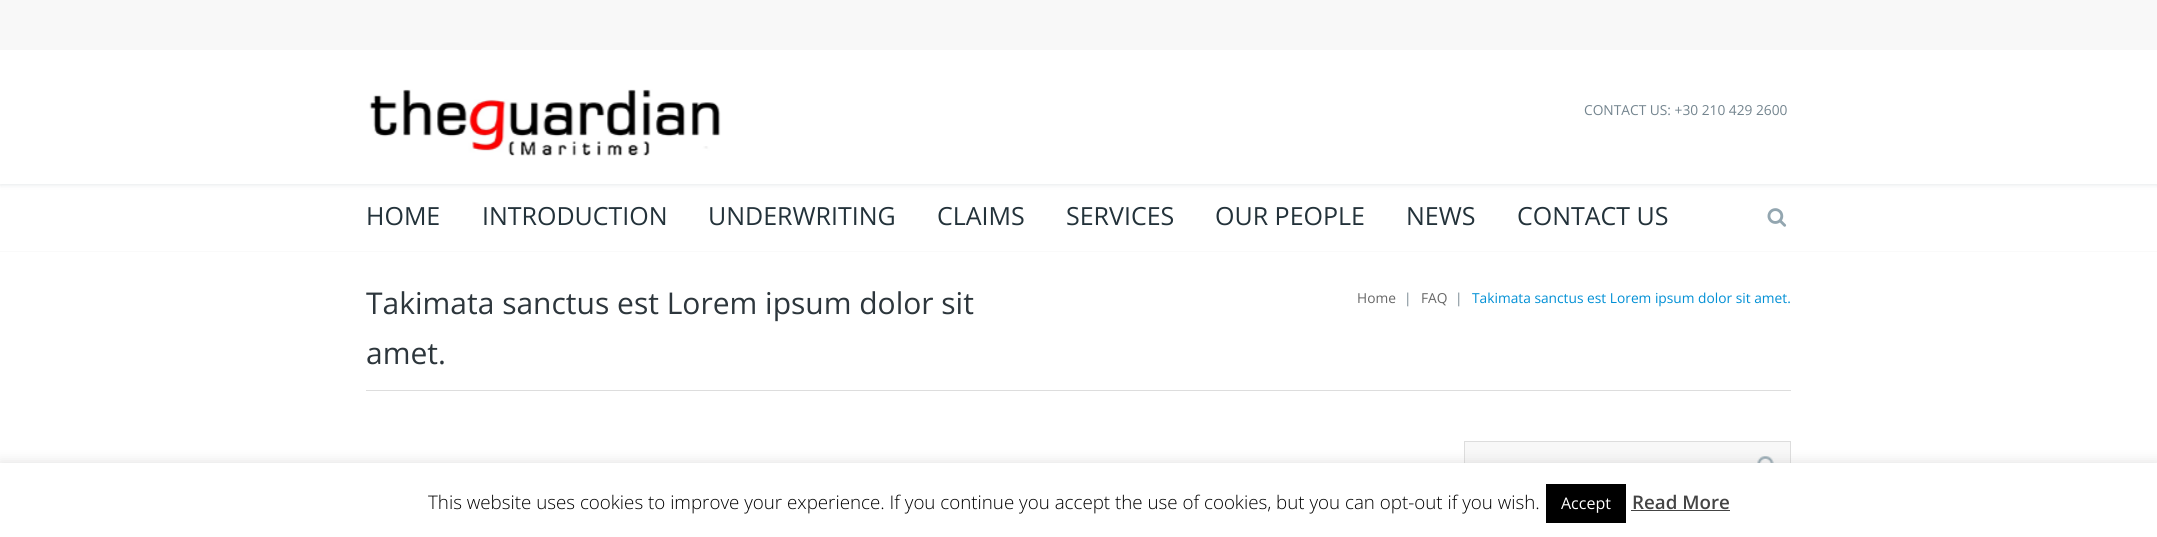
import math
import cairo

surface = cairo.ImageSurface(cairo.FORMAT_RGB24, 2157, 537)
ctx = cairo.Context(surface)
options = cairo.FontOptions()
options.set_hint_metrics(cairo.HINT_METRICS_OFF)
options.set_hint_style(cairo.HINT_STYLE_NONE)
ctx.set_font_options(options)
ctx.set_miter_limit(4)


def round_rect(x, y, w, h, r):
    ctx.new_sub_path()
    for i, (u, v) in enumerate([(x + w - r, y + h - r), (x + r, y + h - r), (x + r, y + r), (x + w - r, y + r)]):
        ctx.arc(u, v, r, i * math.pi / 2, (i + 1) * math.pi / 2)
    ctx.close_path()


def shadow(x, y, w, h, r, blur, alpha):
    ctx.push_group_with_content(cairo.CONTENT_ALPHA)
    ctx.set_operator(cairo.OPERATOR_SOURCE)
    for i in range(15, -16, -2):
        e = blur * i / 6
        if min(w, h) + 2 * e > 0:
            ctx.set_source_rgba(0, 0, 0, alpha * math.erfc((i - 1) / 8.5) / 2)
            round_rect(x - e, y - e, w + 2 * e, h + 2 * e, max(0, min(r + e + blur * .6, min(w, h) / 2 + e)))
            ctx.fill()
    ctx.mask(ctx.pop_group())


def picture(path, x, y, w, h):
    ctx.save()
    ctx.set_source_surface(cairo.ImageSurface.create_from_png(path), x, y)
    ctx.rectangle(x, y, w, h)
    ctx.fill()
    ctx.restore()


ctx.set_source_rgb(1, 1, 1)
ctx.paint()
ctx.set_source_rgb(0, 0.118, 0.18)
shadow(0, 51, 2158, 134, 0, 2.5, 0.1)
ctx.set_source_rgb(0.969, 0.969, 0.969)
ctx.rectangle(0, 0, 2157, 50)
ctx.fill()
ctx.set_source_rgb(1, 1, 1)
ctx.rectangle(0, 50, 2157, 134)
ctx.fill()
picture("img1.png", 369, 89, 352, 67)
ctx.select_font_face("Open Sans")
ctx.set_font_size(13.75)
ctx.set_source_rgb(0.451, 0.518, 0.557)
ctx.move_to(1584, 115)
ctx.show_text("CONTACT US: +30 210 429 2600")
ctx.set_source_rgb(0.98, 0.98, 0.98)
ctx.rectangle(0, 251, 2157, 1)
ctx.fill()
ctx.set_font_size(25)
ctx.set_source_rgb(0.137, 0.196, 0.227)
ctx.move_to(366, 225)
ctx.show_text("HOME")
ctx.move_to(482, 225)
ctx.show_text("INTRODUCTION")
ctx.move_to(708, 225)
ctx.show_text("UNDERWRITING")
ctx.move_to(937, 225)
ctx.show_text("CLAIMS")
ctx.move_to(1066, 225)
ctx.show_text("SERVICES")
ctx.move_to(1215, 225)
ctx.show_text("OUR PEOPLE")
ctx.move_to(1406, 225)
ctx.show_text("NEWS")
ctx.move_to(1517, 225)
ctx.show_text("CONTACT US")
picture("img2.png", 1767, 208, 20, 19)
ctx.set_source_rgb(0.867, 0.867, 0.867)
ctx.rectangle(366, 390, 1425, 1)
ctx.fill()
ctx.set_font_size(30)
ctx.set_source_rgb(0.176, 0.212, 0.235)
ctx.move_to(366, 314)
ctx.show_text("Takimata sanctus est Lorem ipsum dolor sit")
ctx.move_to(366, 364)
ctx.show_text("amet.")
ctx.set_font_size(13.75)
ctx.set_source_rgb(0.4, 0.4, 0.4)
ctx.move_to(1357, 303)
ctx.show_text("Home")
ctx.set_source_rgb(0.451, 0.518, 0.557)
ctx.move_to(1404, 303)
ctx.show_text("|")
ctx.set_source_rgb(0.4, 0.4, 0.4)
ctx.move_to(1421, 303)
ctx.show_text("FAQ")
ctx.set_source_rgb(0.451, 0.518, 0.557)
ctx.move_to(1455, 303)
ctx.show_text("|")
ctx.set_source_rgb(0, 0.561, 0.835)
ctx.move_to(1472, 303)
ctx.show_text("Takimata sanctus est Lorem ipsum dolor sit amet.")
ctx.set_source_rgb(0.969, 0.969, 0.969)
ctx.rectangle(1465, 442, 325, 21)
ctx.fill()
ctx.rectangle(1464.5, 441.5, 326, 49)
ctx.set_source_rgb(0.867, 0.867, 0.867)
ctx.set_line_width(1)
ctx.stroke()
picture("img3.png", 1757, 456, 17, 7)
ctx.set_source_rgb(0.675, 0.671, 0.671)
shadow(0, 461, 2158, 75, 0, 6, 0.3)
ctx.set_source_rgb(1, 1, 1)
ctx.rectangle(0, 463, 2157, 74)
ctx.fill()
ctx.select_font_face("Open Sans Light")
ctx.set_font_size(18.75)
ctx.set_source_rgb(0, 0, 0)
ctx.move_to(428, 509)
ctx.show_text("This website uses cookies to improve your experience. If you continue you accept the use of cookies, but you can opt-out if you wish.")
ctx.rectangle(1546, 484, 80, 39)
ctx.fill()
ctx.select_font_face("Open Sans")
ctx.set_font_size(16)
ctx.set_source_rgb(1, 1, 1)
ctx.move_to(1561, 509)
ctx.show_text("Accept")
ctx.select_font_face("Open Sans SemiBold")
ctx.set_font_size(18.75)
ctx.set_source_rgb(0.267, 0.267, 0.267)
ctx.move_to(1632, 509)
ctx.show_text("Read More")
ctx.rectangle(1631, 510, 99, 1)
ctx.fill()
surface.write_to_png("page.png")
